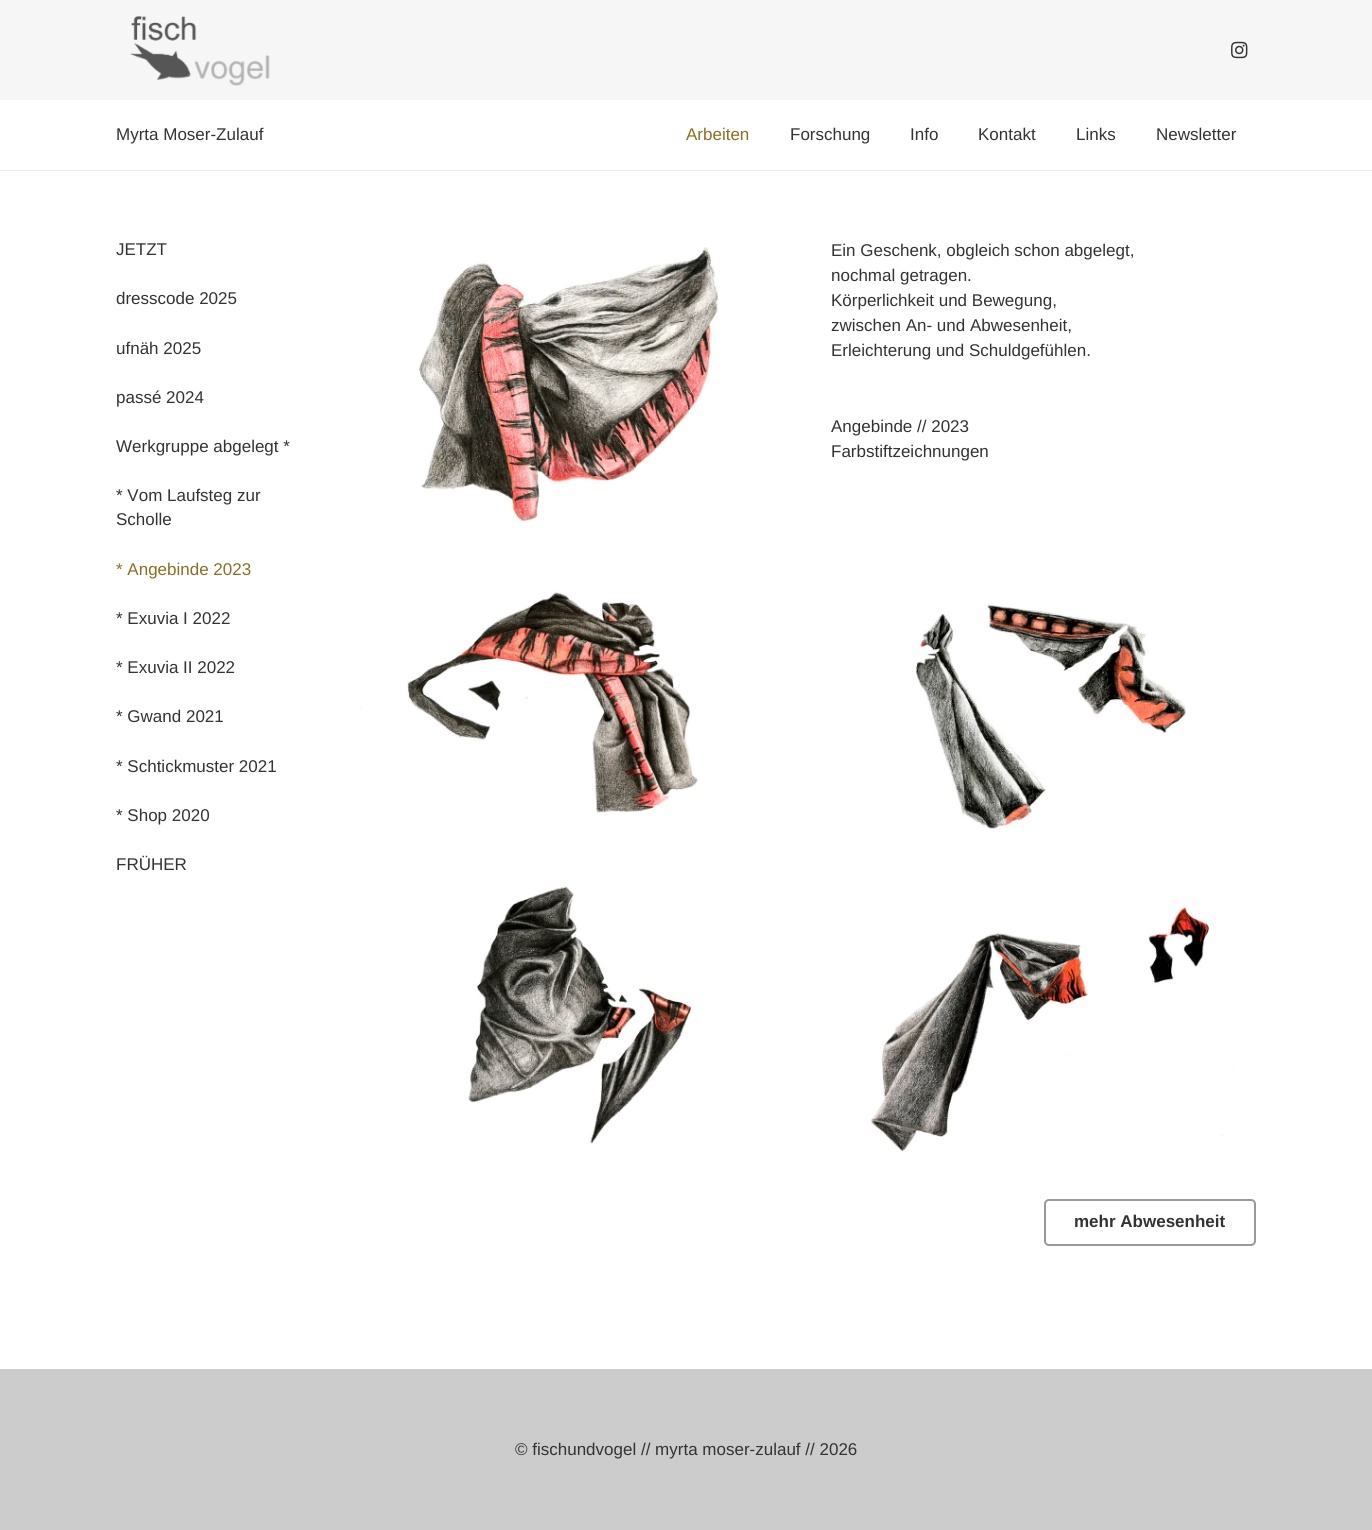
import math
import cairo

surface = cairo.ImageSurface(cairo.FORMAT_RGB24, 1372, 1530)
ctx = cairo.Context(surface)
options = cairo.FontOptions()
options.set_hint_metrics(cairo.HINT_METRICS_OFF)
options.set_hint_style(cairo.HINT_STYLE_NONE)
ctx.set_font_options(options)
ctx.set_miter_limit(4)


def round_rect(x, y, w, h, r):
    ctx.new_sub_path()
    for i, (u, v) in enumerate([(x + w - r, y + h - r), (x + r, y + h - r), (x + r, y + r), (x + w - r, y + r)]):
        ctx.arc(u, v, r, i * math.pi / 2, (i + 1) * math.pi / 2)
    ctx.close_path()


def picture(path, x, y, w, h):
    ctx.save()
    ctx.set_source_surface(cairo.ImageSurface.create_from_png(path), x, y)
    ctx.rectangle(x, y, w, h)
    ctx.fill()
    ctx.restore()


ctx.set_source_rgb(1, 1, 1)
ctx.paint()
ctx.set_source_rgb(0.961, 0.961, 0.961)
ctx.rectangle(0, 0, 1372, 100)
ctx.fill()
picture("img1.png", 130, 16, 140, 70)
picture("img2.png", 1231, 41, 17, 18)
ctx.set_source_rgb(0.922, 0.922, 0.922)
ctx.rectangle(0, 170, 1372, 1)
ctx.fill()
ctx.select_font_face("Liberation Sans")
ctx.set_font_size(17)
ctx.set_source_rgb(0.2, 0.2, 0.2)
ctx.move_to(116, 140)
ctx.show_text("Myrta Moser-Zulauf")
ctx.set_source_rgb(0.561, 0.424, 0.133)
ctx.move_to(686, 140)
ctx.show_text("Arbeiten")
ctx.set_source_rgb(0.2, 0.2, 0.2)
ctx.move_to(790, 140)
ctx.show_text("Forschung")
ctx.move_to(910, 140)
ctx.show_text("Info")
ctx.move_to(978, 140)
ctx.show_text("Kontakt")
ctx.move_to(1076, 140)
ctx.show_text("Links")
ctx.move_to(1156, 140)
ctx.show_text("Newsletter")
ctx.move_to(116, 255)
ctx.show_text("JETZT")
ctx.move_to(116, 304)
ctx.show_text("dresscode 2025")
ctx.move_to(116, 354)
ctx.show_text("ufnäh 2025")
ctx.move_to(116, 403)
ctx.show_text("passé 2024")
ctx.move_to(116, 452)
ctx.show_text("Werkgruppe abgelegt *")
ctx.move_to(116, 501)
ctx.show_text("* Vom Laufsteg zur")
ctx.move_to(116, 525)
ctx.show_text("Scholle")
ctx.set_source_rgb(0.561, 0.424, 0.133)
ctx.move_to(116, 575)
ctx.show_text("* Angebinde 2023")
ctx.set_source_rgb(0.2, 0.2, 0.2)
ctx.move_to(116, 624)
ctx.show_text("* Exuvia I 2022")
ctx.move_to(116, 673)
ctx.show_text("* Exuvia II 2022")
ctx.move_to(116, 722)
ctx.show_text("* Gwand 2021")
ctx.move_to(116, 772)
ctx.show_text("* Schtickmuster 2021")
ctx.move_to(116, 821)
ctx.show_text("* Shop 2020")
ctx.move_to(116, 870)
ctx.show_text("FRÜHER")
picture("img3.png", 418, 247, 301, 275)
picture("img4.png", 360, 591, 338, 222)
picture("img5.png", 468, 886, 223, 259)
ctx.move_to(831, 256)
ctx.show_text("Ein Geschenk, obgleich schon abgelegt,")
ctx.move_to(831, 281)
ctx.show_text("nochmal getragen.")
ctx.move_to(831, 306)
ctx.show_text("Körperlichkeit und Bewegung,")
ctx.move_to(831, 331)
ctx.show_text("zwischen An- und Abwesenheit,")
ctx.move_to(831, 356)
ctx.show_text("Erleichterung und Schuldgefühlen.")
ctx.move_to(831, 432)
ctx.show_text("Angebinde // 2023")
ctx.move_to(831, 457)
ctx.show_text("Farbstiftzeichnungen")
picture("img6.png", 915, 604, 271, 225)
picture("img7.png", 870, 906, 374, 246)
round_rect(1045, 1200, 210, 45, 4)
ctx.set_source_rgb(0.6, 0.6, 0.6)
ctx.stroke()
ctx.select_font_face("Liberation Sans", cairo.FONT_SLANT_NORMAL, cairo.FONT_WEIGHT_BOLD)
ctx.set_source_rgb(0.2, 0.2, 0.2)
ctx.move_to(1074, 1227)
ctx.show_text("mehr Abwesenheit")
ctx.set_source_rgb(0.8, 0.8, 0.8)
ctx.rectangle(0, 1369, 1372, 161)
ctx.fill()
ctx.select_font_face("Liberation Sans")
ctx.set_source_rgb(0.2, 0.2, 0.2)
ctx.move_to(515, 1455)
ctx.show_text("© fischundvogel // myrta moser-zulauf // 2026")
surface.write_to_png("page.png")
